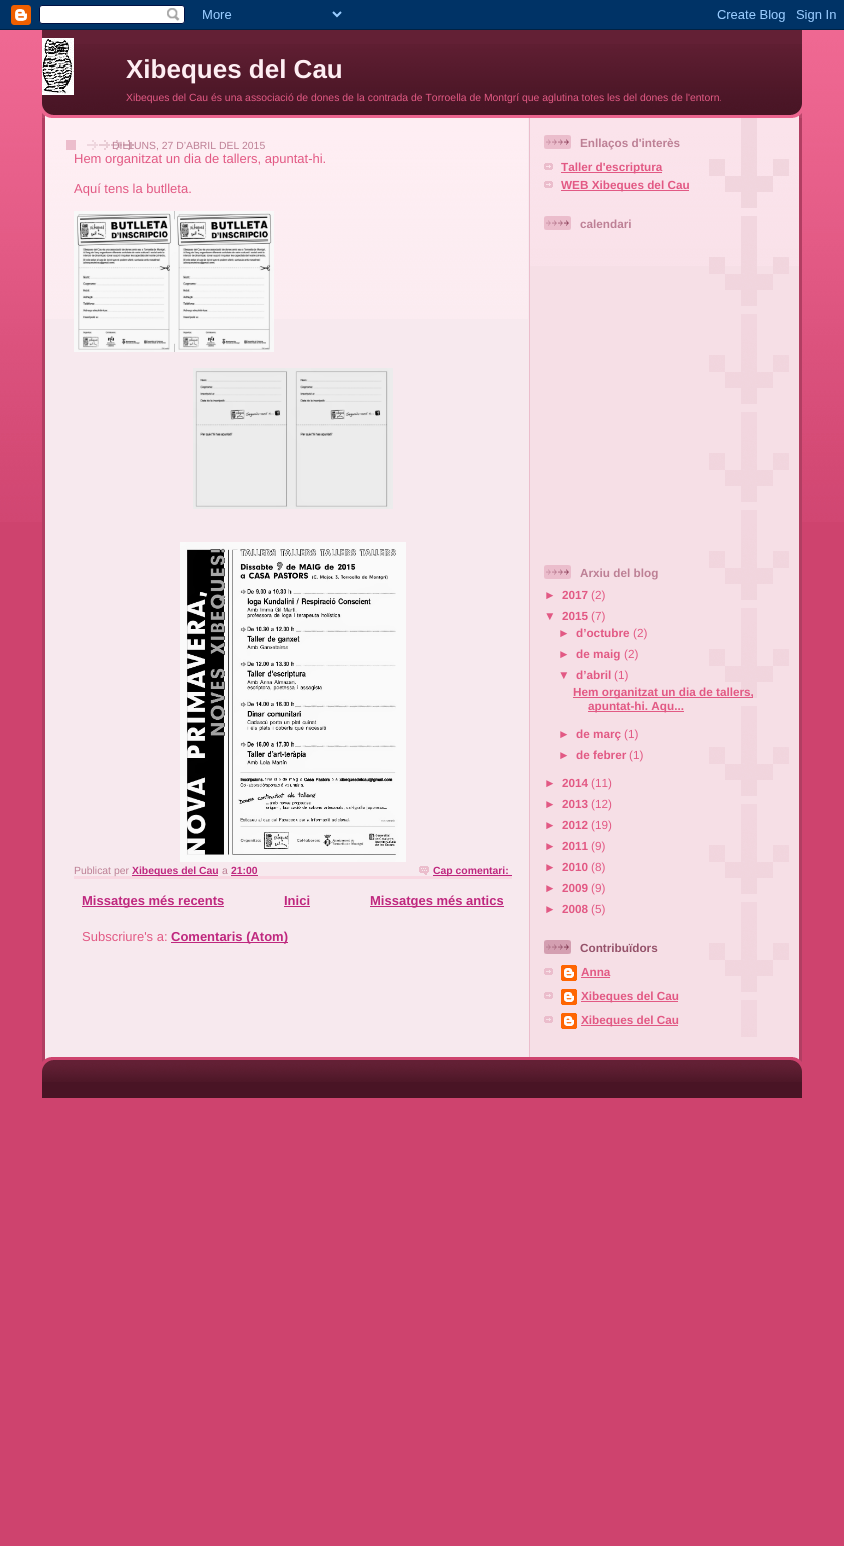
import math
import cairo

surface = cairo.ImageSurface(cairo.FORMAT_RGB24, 844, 1546)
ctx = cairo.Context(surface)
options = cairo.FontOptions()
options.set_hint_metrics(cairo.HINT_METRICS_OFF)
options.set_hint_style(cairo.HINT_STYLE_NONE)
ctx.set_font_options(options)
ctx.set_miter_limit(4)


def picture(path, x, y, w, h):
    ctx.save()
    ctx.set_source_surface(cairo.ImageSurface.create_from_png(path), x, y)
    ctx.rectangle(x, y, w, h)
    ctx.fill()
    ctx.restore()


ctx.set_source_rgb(0.808, 0.263, 0.431)
ctx.paint()
picture("img1.png", 0, 30, 844, 492)
picture("img2.png", 0, 0, 844, 30)
picture("img3.png", 42, 103, 760, 15)
ctx.set_source_rgb(0.388, 0.125, 0.208)
ctx.rectangle(42, 30, 760, 14)
ctx.fill()
picture("img4.png", 42, 44, 760, 59)
picture("img5.png", 42, 38, 32, 57)
ctx.select_font_face("Liberation Sans", cairo.FONT_SLANT_NORMAL, cairo.FONT_WEIGHT_BOLD)
ctx.set_font_size(26)
ctx.set_source_rgb(0.996, 0.933, 0.953)
ctx.move_to(126, 78)
ctx.show_text("Xibeques del Cau")
ctx.select_font_face("Liberation Sans")
ctx.set_font_size(10.4)
ctx.set_source_rgb(0.886, 0.349, 0.518)
ctx.move_to(126, 101)
ctx.show_text("Xibeques del Cau és una associació de dones de la contrada de Torroella de Montgrí que aglutina totes les del dones de l'entorn.")
picture("img6.png", 42, 118, 760, 939)
picture("img7.png", 45, 118, 483, 201)
ctx.set_source_rgb(0.922, 0.741, 0.8)
ctx.rectangle(66, 140, 10, 10)
ctx.fill()
picture("img8.png", 87, 140, 47, 10)
ctx.set_source_rgb(0.741, 0.502, 0.584)
ctx.move_to(112, 149)
ctx.show_text("DILLUNS, 27 D’ABRIL DEL 2015")
ctx.set_source_rgb(0.969, 0.847, 0.886)
ctx.rectangle(74, 876, 438, 3)
ctx.fill()
ctx.set_font_size(13)
ctx.set_source_rgb(0.886, 0.349, 0.518)
ctx.move_to(74, 163)
ctx.show_text("Hem organitzat un dia de tallers, apuntat-hi.")
ctx.move_to(74, 193)
ctx.show_text("Aquí tens la butlleta.")
picture("img9.png", 74, 211, 200, 141)
picture("img10.png", 193, 368, 200, 141)
picture("img11.png", 180, 542, 226, 320)
ctx.set_font_size(10.4)
ctx.set_source_rgb(0.741, 0.502, 0.584)
ctx.move_to(74, 874)
ctx.show_text("Publicat per")
ctx.set_source_rgb(0.749, 0.153, 0.494)
ctx.rectangle(132, 875, 86, 1)
ctx.fill()
ctx.select_font_face("Liberation Sans", cairo.FONT_SLANT_NORMAL, cairo.FONT_WEIGHT_BOLD)
ctx.move_to(132, 874)
ctx.show_text("Xibeques del Cau")
ctx.select_font_face("Liberation Sans")
ctx.set_source_rgb(0.741, 0.502, 0.584)
ctx.move_to(222, 874)
ctx.show_text("a")
ctx.select_font_face("Liberation Sans", cairo.FONT_SLANT_NORMAL, cairo.FONT_WEIGHT_BOLD)
ctx.set_source_rgb(0.749, 0.153, 0.494)
ctx.move_to(231, 874)
ctx.show_text("21:00")
ctx.rectangle(231, 875, 27, 1)
ctx.fill()
picture("img12.png", 419, 866, 10, 9)
ctx.rectangle(433, 875, 79, 1)
ctx.fill()
ctx.move_to(433, 874)
ctx.show_text("Cap comentari:")
ctx.rectangle(82, 906, 142, 1)
ctx.fill()
ctx.set_font_size(13)
ctx.move_to(82, 905)
ctx.show_text("Missatges més recents")
ctx.move_to(284, 905)
ctx.show_text("Inici")
ctx.rectangle(284, 906, 26, 1)
ctx.fill()
ctx.rectangle(370, 906, 134, 1)
ctx.fill()
ctx.move_to(370, 905)
ctx.show_text("Missatges més antics")
ctx.select_font_face("Liberation Sans")
ctx.set_source_rgb(0.886, 0.349, 0.518)
ctx.move_to(82, 941)
ctx.show_text("Subscriure's a:")
ctx.set_source_rgb(0.749, 0.153, 0.494)
ctx.rectangle(171, 942, 117, 1)
ctx.fill()
ctx.select_font_face("Liberation Sans", cairo.FONT_SLANT_NORMAL, cairo.FONT_WEIGHT_BOLD)
ctx.move_to(171, 941)
ctx.show_text("Comentaris (Atom)")
picture("img13.png", 530, 118, 269, 148)
picture("img14.png", 709, 118, 80, 919)
picture("img15.png", 544, 135, 27, 14)
ctx.set_font_size(11.75)
ctx.set_source_rgb(0.741, 0.502, 0.584)
ctx.move_to(580, 147)
ctx.show_text("Enllaços d'interès")
picture("img16.png", 544, 163, 9, 7)
ctx.set_source_rgb(0.886, 0.349, 0.518)
ctx.rectangle(561, 172, 101, 1)
ctx.fill()
ctx.move_to(561, 171)
ctx.show_text("Taller d'escriptura")
picture("img17.png", 544, 181, 9, 7)
ctx.rectangle(561, 190, 128, 1)
ctx.fill()
ctx.move_to(561, 189)
ctx.show_text("WEB Xibeques del Cau")
picture("img18.png", 544, 216, 27, 14)
ctx.set_source_rgb(0.741, 0.502, 0.584)
ctx.move_to(580, 228)
ctx.show_text("calendari")
picture("img19.png", 544, 565, 27, 14)
ctx.move_to(580, 577)
ctx.show_text("Arxiu del blog")
ctx.set_source_rgb(0.886, 0.349, 0.518)
ctx.move_to(544, 599)
ctx.show_text("►")
ctx.move_to(562, 599)
ctx.show_text("2017")
ctx.select_font_face("Liberation Sans")
ctx.move_to(591, 599)
ctx.show_text("(2)")
ctx.select_font_face("Liberation Sans", cairo.FONT_SLANT_NORMAL, cairo.FONT_WEIGHT_BOLD)
ctx.move_to(544, 620)
ctx.show_text("▼")
ctx.move_to(562, 620)
ctx.show_text("2015")
ctx.select_font_face("Liberation Sans")
ctx.move_to(591, 620)
ctx.show_text("(7)")
ctx.select_font_face("Liberation Sans", cairo.FONT_SLANT_NORMAL, cairo.FONT_WEIGHT_BOLD)
ctx.move_to(558, 637)
ctx.show_text("►")
ctx.move_to(576, 637)
ctx.show_text("d’octubre")
ctx.select_font_face("Liberation Sans")
ctx.move_to(633, 637)
ctx.show_text("(2)")
ctx.select_font_face("Liberation Sans", cairo.FONT_SLANT_NORMAL, cairo.FONT_WEIGHT_BOLD)
ctx.move_to(558, 658)
ctx.show_text("►")
ctx.move_to(576, 658)
ctx.show_text("de maig")
ctx.select_font_face("Liberation Sans")
ctx.move_to(624, 658)
ctx.show_text("(2)")
ctx.select_font_face("Liberation Sans", cairo.FONT_SLANT_NORMAL, cairo.FONT_WEIGHT_BOLD)
ctx.move_to(558, 679)
ctx.show_text("▼")
ctx.move_to(576, 679)
ctx.show_text("d’abril")
ctx.select_font_face("Liberation Sans")
ctx.move_to(614, 679)
ctx.show_text("(1)")
ctx.rectangle(573, 697, 180, 1)
ctx.fill()
ctx.select_font_face("Liberation Sans", cairo.FONT_SLANT_NORMAL, cairo.FONT_WEIGHT_BOLD)
ctx.move_to(573, 696)
ctx.show_text("Hem organitzat un dia de tallers,")
ctx.rectangle(588, 711, 96, 1)
ctx.fill()
ctx.move_to(588, 710)
ctx.show_text("apuntat-hi. Aqu...")
ctx.move_to(558, 738)
ctx.show_text("►")
ctx.move_to(576, 738)
ctx.show_text("de març")
ctx.select_font_face("Liberation Sans")
ctx.move_to(624, 738)
ctx.show_text("(1)")
ctx.select_font_face("Liberation Sans", cairo.FONT_SLANT_NORMAL, cairo.FONT_WEIGHT_BOLD)
ctx.move_to(558, 759)
ctx.show_text("►")
ctx.move_to(576, 759)
ctx.show_text("de febrer")
ctx.select_font_face("Liberation Sans")
ctx.move_to(629, 759)
ctx.show_text("(1)")
ctx.select_font_face("Liberation Sans", cairo.FONT_SLANT_NORMAL, cairo.FONT_WEIGHT_BOLD)
ctx.move_to(544, 787)
ctx.show_text("►")
ctx.move_to(562, 787)
ctx.show_text("2014")
ctx.select_font_face("Liberation Sans")
ctx.move_to(591, 787)
ctx.show_text("(11)")
ctx.select_font_face("Liberation Sans", cairo.FONT_SLANT_NORMAL, cairo.FONT_WEIGHT_BOLD)
ctx.move_to(544, 808)
ctx.show_text("►")
ctx.move_to(562, 808)
ctx.show_text("2013")
ctx.select_font_face("Liberation Sans")
ctx.move_to(591, 808)
ctx.show_text("(12)")
ctx.select_font_face("Liberation Sans", cairo.FONT_SLANT_NORMAL, cairo.FONT_WEIGHT_BOLD)
ctx.move_to(544, 829)
ctx.show_text("►")
ctx.move_to(562, 829)
ctx.show_text("2012")
ctx.select_font_face("Liberation Sans")
ctx.move_to(591, 829)
ctx.show_text("(19)")
ctx.select_font_face("Liberation Sans", cairo.FONT_SLANT_NORMAL, cairo.FONT_WEIGHT_BOLD)
ctx.move_to(544, 850)
ctx.show_text("►")
ctx.move_to(562, 850)
ctx.show_text("2011")
ctx.select_font_face("Liberation Sans")
ctx.move_to(591, 850)
ctx.show_text("(9)")
ctx.select_font_face("Liberation Sans", cairo.FONT_SLANT_NORMAL, cairo.FONT_WEIGHT_BOLD)
ctx.move_to(544, 871)
ctx.show_text("►")
ctx.move_to(562, 871)
ctx.show_text("2010")
ctx.select_font_face("Liberation Sans")
ctx.move_to(591, 871)
ctx.show_text("(8)")
ctx.select_font_face("Liberation Sans", cairo.FONT_SLANT_NORMAL, cairo.FONT_WEIGHT_BOLD)
ctx.move_to(544, 892)
ctx.show_text("►")
ctx.move_to(562, 892)
ctx.show_text("2009")
ctx.select_font_face("Liberation Sans")
ctx.move_to(591, 892)
ctx.show_text("(9)")
ctx.select_font_face("Liberation Sans", cairo.FONT_SLANT_NORMAL, cairo.FONT_WEIGHT_BOLD)
ctx.move_to(544, 913)
ctx.show_text("►")
ctx.move_to(562, 913)
ctx.show_text("2008")
ctx.select_font_face("Liberation Sans")
ctx.move_to(591, 913)
ctx.show_text("(5)")
picture("img20.png", 544, 940, 27, 14)
ctx.select_font_face("Liberation Sans", cairo.FONT_SLANT_NORMAL, cairo.FONT_WEIGHT_BOLD)
ctx.set_source_rgb(0.584, 0.322, 0.416)
ctx.move_to(580, 952)
ctx.show_text("Contribuïdors")
picture("img21.png", 544, 968, 9, 7)
picture("img22.png", 561, 965, 16, 16)
ctx.set_source_rgb(0.886, 0.349, 0.518)
ctx.move_to(581, 976)
ctx.show_text("Anna")
ctx.rectangle(581, 977, 29, 1)
ctx.fill()
picture("img21.png", 544, 992, 9, 7)
picture("img22.png", 561, 989, 16, 16)
ctx.rectangle(581, 1001, 97, 1)
ctx.fill()
ctx.move_to(581, 1000)
ctx.show_text("Xibeques del Cau")
picture("img21.png", 544, 1016, 9, 7)
picture("img22.png", 561, 1013, 16, 16)
ctx.rectangle(581, 1025, 97, 1)
ctx.fill()
ctx.move_to(581, 1024)
ctx.show_text("Xibeques del Cau")
picture("img23.png", 42, 1057, 760, 15)
ctx.set_source_rgb(0.286, 0.082, 0.145)
ctx.rectangle(42, 1082, 760, 16)
ctx.fill()
picture("img24.png", 42, 1072, 760, 10)
surface.write_to_png("page.png")
